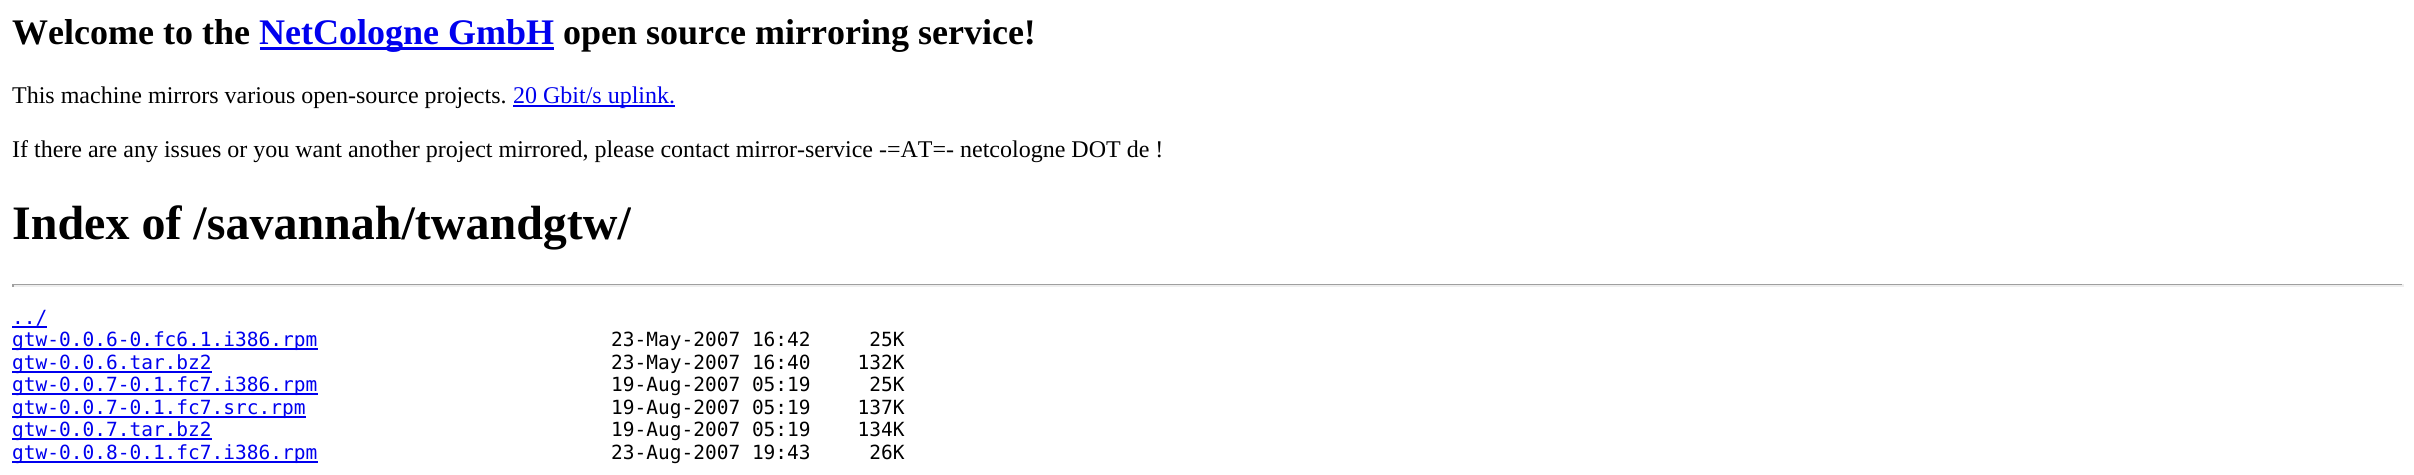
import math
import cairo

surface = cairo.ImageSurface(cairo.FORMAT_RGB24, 2414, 475)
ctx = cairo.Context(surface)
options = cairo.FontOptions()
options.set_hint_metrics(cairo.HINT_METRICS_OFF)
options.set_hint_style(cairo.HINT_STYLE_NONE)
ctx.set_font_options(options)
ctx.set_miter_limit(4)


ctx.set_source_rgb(1, 1, 1)
ctx.paint()
ctx.select_font_face("Liberation Serif", cairo.FONT_SLANT_NORMAL, cairo.FONT_WEIGHT_BOLD)
ctx.set_font_size(36)
ctx.set_source_rgb(0, 0, 0)
ctx.move_to(12, 44)
ctx.show_text("Welcome to the")
ctx.set_source_rgb(0, 0, 0.933)
ctx.rectangle(260, 47, 294, 3)
ctx.fill()
ctx.move_to(259, 44)
ctx.show_text("NetCologne GmbH")
ctx.set_source_rgb(0, 0, 0)
ctx.move_to(563, 44)
ctx.show_text("open source mirroring service!")
ctx.select_font_face("Liberation Serif")
ctx.set_font_size(24)
ctx.move_to(12, 103)
ctx.show_text("This machine mirrors various open-source projects.")
ctx.set_source_rgb(0, 0, 0.933)
ctx.rectangle(513, 105, 162, 2)
ctx.fill()
ctx.move_to(513, 103)
ctx.show_text("20 Gbit/s uplink.")
ctx.set_source_rgb(0, 0, 0)
ctx.move_to(12, 157)
ctx.show_text("If there are any issues or you want another project mirrored, please contact mirror-service -=AT=- netcologne DOT de !")
ctx.select_font_face("Liberation Serif", cairo.FONT_SLANT_NORMAL, cairo.FONT_WEIGHT_BOLD)
ctx.set_font_size(48)
ctx.move_to(12, 239)
ctx.show_text("Index of /savannah/twandgtw/")
ctx.set_source_rgb(0.624, 0.624, 0.624)
ctx.rectangle(12, 284, 2391, 1)
ctx.fill()
ctx.set_source_rgb(0.933, 0.933, 0.933)
ctx.rectangle(2402, 284, 2, 3)
ctx.fill()
ctx.rectangle(12, 285, 2391, 2)
ctx.fill()
ctx.set_source_rgb(0.624, 0.624, 0.624)
ctx.rectangle(12, 284, 2, 3)
ctx.fill()
ctx.select_font_face("DejaVu Sans Mono")
ctx.set_font_size(19.5)
ctx.set_source_rgb(0, 0, 0.933)
ctx.move_to(12, 324)
ctx.show_text("../")
ctx.rectangle(12, 326, 35, 2)
ctx.fill()
ctx.rectangle(12, 348, 306, 2)
ctx.fill()
ctx.move_to(12, 346)
ctx.show_text("gtw-0.0.6-0.fc6.1.i386.rpm")
ctx.set_source_rgb(0, 0, 0)
ctx.move_to(611, 346)
ctx.show_text("23-May-2007 16:42     25K")
ctx.set_source_rgb(0, 0, 0.933)
ctx.rectangle(12, 371, 200, 2)
ctx.fill()
ctx.move_to(12, 369)
ctx.show_text("gtw-0.0.6.tar.bz2")
ctx.set_source_rgb(0, 0, 0)
ctx.move_to(611, 369)
ctx.show_text("23-May-2007 16:40    132K")
ctx.set_source_rgb(0, 0, 0.933)
ctx.rectangle(12, 393, 306, 2)
ctx.fill()
ctx.move_to(12, 391)
ctx.show_text("gtw-0.0.7-0.1.fc7.i386.rpm")
ctx.set_source_rgb(0, 0, 0)
ctx.move_to(611, 391)
ctx.show_text("19-Aug-2007 05:19     25K")
ctx.set_source_rgb(0, 0, 0.933)
ctx.rectangle(12, 416, 294, 2)
ctx.fill()
ctx.move_to(12, 414)
ctx.show_text("gtw-0.0.7-0.1.fc7.src.rpm")
ctx.set_source_rgb(0, 0, 0)
ctx.move_to(611, 414)
ctx.show_text("19-Aug-2007 05:19    137K")
ctx.set_source_rgb(0, 0, 0.933)
ctx.rectangle(12, 438, 200, 2)
ctx.fill()
ctx.move_to(12, 436)
ctx.show_text("gtw-0.0.7.tar.bz2")
ctx.set_source_rgb(0, 0, 0)
ctx.move_to(611, 436)
ctx.show_text("19-Aug-2007 05:19    134K")
ctx.set_source_rgb(0, 0, 0.933)
ctx.rectangle(12, 461, 306, 2)
ctx.fill()
ctx.move_to(12, 459)
ctx.show_text("gtw-0.0.8-0.1.fc7.i386.rpm")
ctx.set_source_rgb(0, 0, 0)
ctx.move_to(611, 459)
ctx.show_text("23-Aug-2007 19:43     26K")
surface.write_to_png("page.png")
